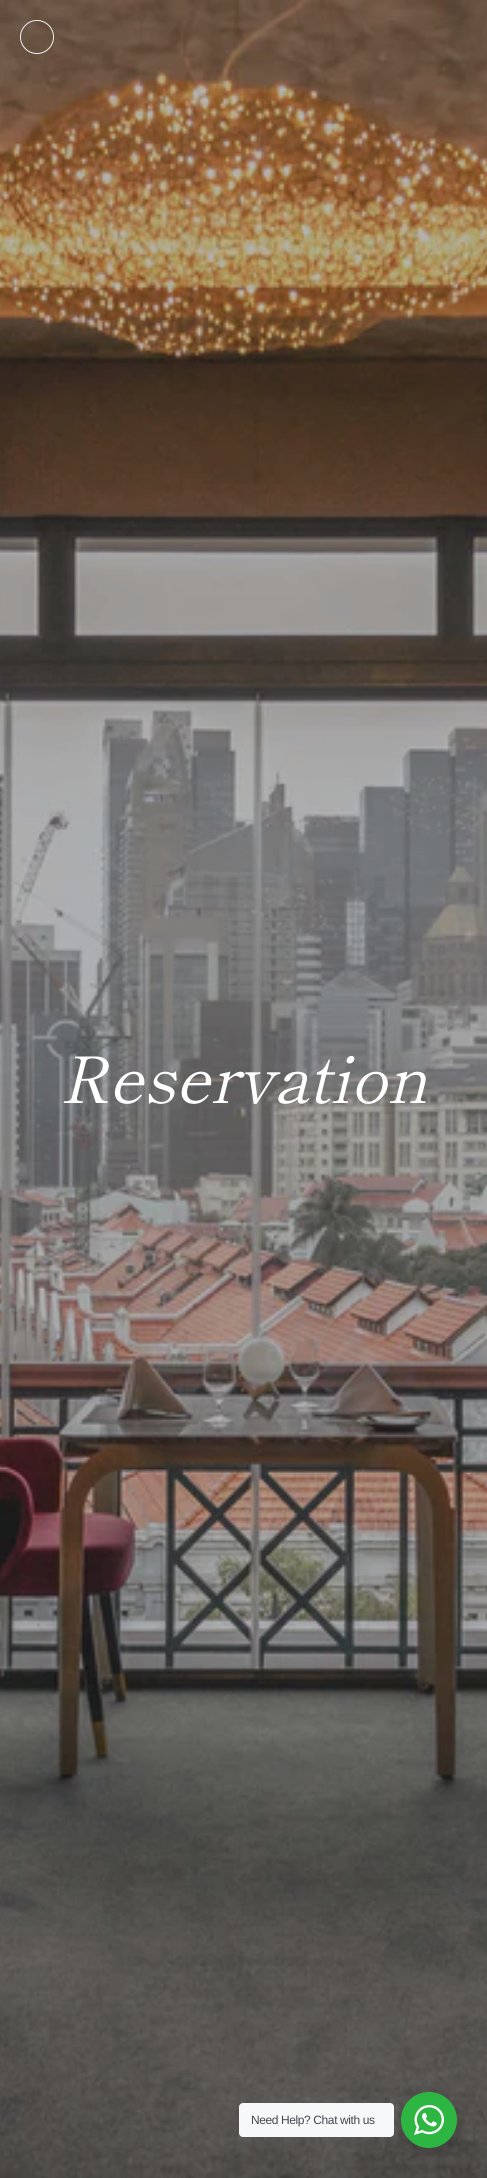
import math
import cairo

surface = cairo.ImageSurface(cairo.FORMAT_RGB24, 487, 2178)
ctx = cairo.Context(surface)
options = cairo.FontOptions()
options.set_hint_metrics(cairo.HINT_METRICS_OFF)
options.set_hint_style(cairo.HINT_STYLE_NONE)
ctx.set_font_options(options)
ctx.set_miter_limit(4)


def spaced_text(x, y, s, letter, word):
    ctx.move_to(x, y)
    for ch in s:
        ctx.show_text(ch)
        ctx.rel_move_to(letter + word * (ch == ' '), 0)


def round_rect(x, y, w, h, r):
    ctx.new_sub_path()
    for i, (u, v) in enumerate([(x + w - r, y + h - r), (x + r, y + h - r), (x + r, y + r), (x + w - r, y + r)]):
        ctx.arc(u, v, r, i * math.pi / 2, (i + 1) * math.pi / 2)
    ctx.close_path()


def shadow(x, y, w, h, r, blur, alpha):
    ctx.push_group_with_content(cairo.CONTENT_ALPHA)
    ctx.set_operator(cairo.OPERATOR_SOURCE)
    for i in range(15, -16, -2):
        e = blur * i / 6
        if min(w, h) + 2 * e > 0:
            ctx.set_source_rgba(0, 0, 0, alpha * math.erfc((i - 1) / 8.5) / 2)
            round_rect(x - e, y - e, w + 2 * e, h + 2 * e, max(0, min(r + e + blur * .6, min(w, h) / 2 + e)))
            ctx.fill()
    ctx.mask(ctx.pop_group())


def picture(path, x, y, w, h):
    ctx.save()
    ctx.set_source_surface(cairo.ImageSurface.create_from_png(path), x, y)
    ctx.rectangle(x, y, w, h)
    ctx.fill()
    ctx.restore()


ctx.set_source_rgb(1, 1, 1)
ctx.paint()
picture("img2.png", 0, 0, 487, 2178)
picture("img1.png", 20, 20, 34, 34)
ctx.select_font_face("Shippori Mincho", cairo.FONT_SLANT_ITALIC)
ctx.set_font_size(64)
ctx.set_source_rgb(1, 1, 1)
ctx.move_to(60, 1103)
ctx.show_text("Reservation")
ctx.set_source_rgb(0, 0, 0)
shadow(399, 2096, 60, 60, 30, 4, 0.14)
ctx.set_source_rgb(0.961, 0.969, 0.976)
round_rect(239, 2103, 155, 34, 4)
ctx.fill()
ctx.select_font_face("Liberation Sans")
ctx.set_font_size(12)
ctx.set_source_rgb(0.263, 0.278, 0.306)
spaced_text(251, 2124, "Need Help? Chat with us", -0.4, 0)
ctx.set_source_rgb(0.176, 0.718, 0.259)
ctx.new_path()
ctx.arc(429, 2120, 28, 0, 2 * math.pi)
ctx.fill()
picture("img3.png", 414, 2105, 30, 30)
surface.write_to_png("page.png")
